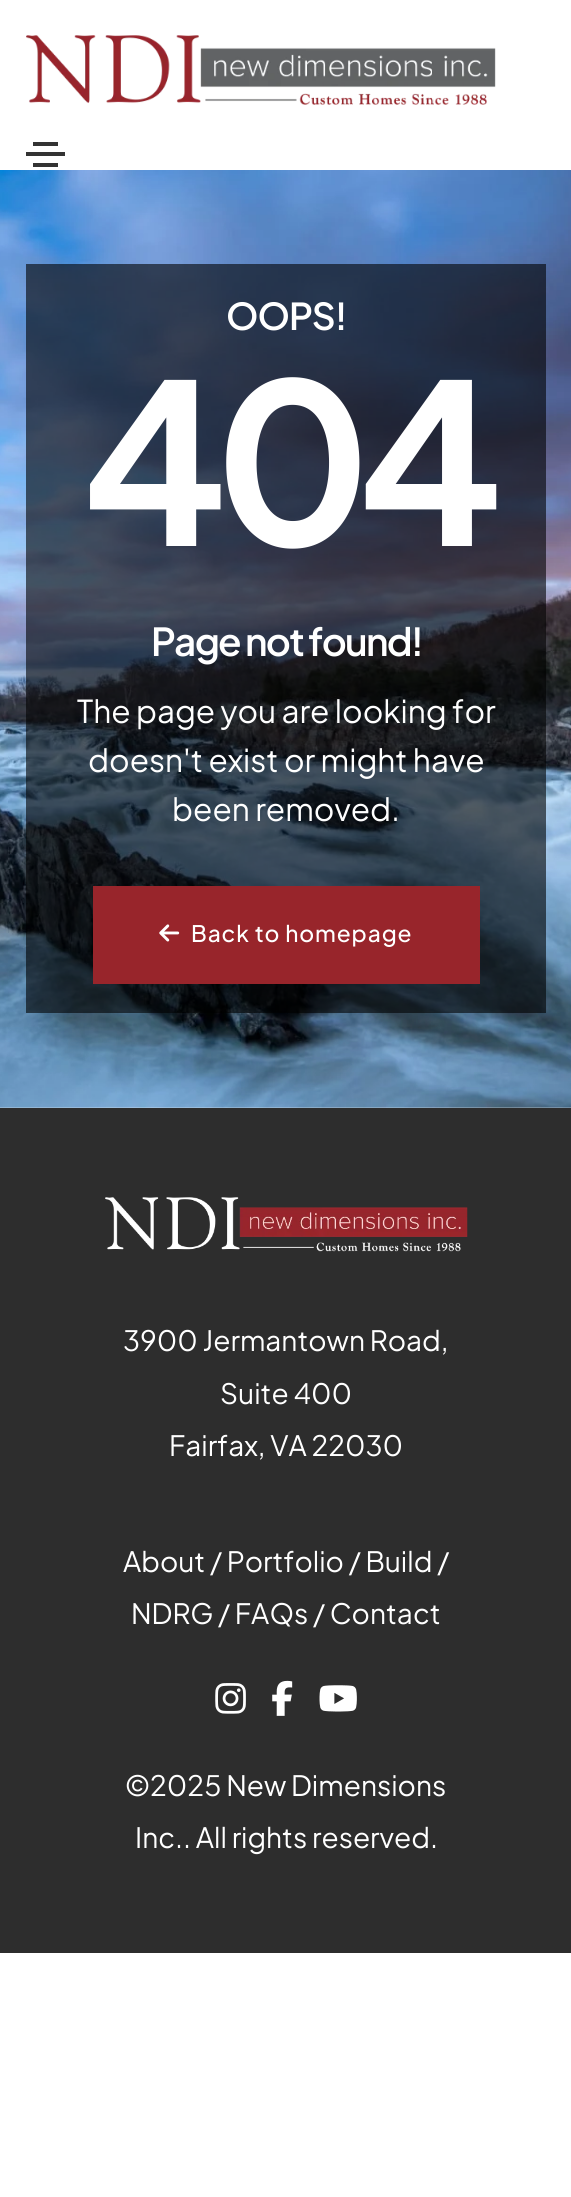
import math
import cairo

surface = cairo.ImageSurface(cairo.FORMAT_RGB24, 571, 2197)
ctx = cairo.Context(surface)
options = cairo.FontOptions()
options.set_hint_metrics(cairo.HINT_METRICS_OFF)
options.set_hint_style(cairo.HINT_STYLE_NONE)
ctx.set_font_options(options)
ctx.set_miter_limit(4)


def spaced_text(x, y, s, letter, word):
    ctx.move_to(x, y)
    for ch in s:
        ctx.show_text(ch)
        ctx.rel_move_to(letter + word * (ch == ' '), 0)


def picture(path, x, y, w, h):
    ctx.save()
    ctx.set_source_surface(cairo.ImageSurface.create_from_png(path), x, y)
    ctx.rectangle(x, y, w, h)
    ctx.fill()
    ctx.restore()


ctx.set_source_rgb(1, 1, 1)
ctx.paint()
picture("img1.png", 26, 35, 470, 70)
ctx.set_source_rgb(0.2, 0.2, 0.2)
ctx.rectangle(33, 142, 25, 4)
ctx.fill()
ctx.rectangle(26, 152, 39, 4)
ctx.fill()
ctx.rectangle(33, 163, 25, 4)
ctx.fill()
picture("img2.png", 0, 170, 571, 938)
ctx.set_source_rgba(0, 0, 0, 0.6)
ctx.rectangle(26, 264, 520, 749)
ctx.fill()
ctx.select_font_face("Plus Jakarta Sans SemiBold")
ctx.set_font_size(37)
ctx.set_source_rgb(1, 1, 1)
spaced_text(226, 330, "OOPS!", -1, 0)
ctx.select_font_face("Plus Jakarta Sans", cairo.FONT_SLANT_NORMAL, cairo.FONT_WEIGHT_BOLD)
ctx.set_font_size(223)
spaced_text(82, 546, "404", -14, 0)
ctx.select_font_face("Plus Jakarta Sans SemiBold")
ctx.set_font_size(38.5)
spaced_text(151, 656, "Page not found!", -1.75, 0)
ctx.select_font_face("Plus Jakarta Sans")
ctx.set_font_size(31.5)
ctx.move_to(77, 723)
ctx.show_text("The page you are looking for")
ctx.move_to(88, 772)
ctx.show_text("doesn't exist or might have")
ctx.move_to(172, 821)
ctx.show_text("been removed.")
ctx.set_source_rgb(0.596, 0.145, 0.169)
ctx.rectangle(93, 886, 387, 98)
ctx.fill()
picture("img3.png", 159, 924, 21, 18)
ctx.select_font_face("Plus Jakarta Sans Medium")
ctx.set_font_size(22.75)
ctx.set_source_rgb(1, 1, 1)
spaced_text(191, 942, "Back to homepage", 0.9, 0)
ctx.set_source_rgb(0.176, 0.176, 0.176)
ctx.rectangle(0, 1108, 571, 845)
ctx.fill()
picture("img4.png", 105, 1197, 363, 55)
ctx.select_font_face("Plus Jakarta Sans")
ctx.set_font_size(28)
ctx.set_source_rgb(1, 1, 1)
ctx.move_to(123, 1351)
ctx.show_text("3900 Jermantown Road,")
ctx.move_to(220, 1404)
ctx.show_text("Suite 400")
ctx.move_to(169, 1456)
ctx.show_text("Fairfax, VA 22030")
ctx.move_to(123, 1572)
ctx.show_text("About / Portfolio / Build /")
ctx.move_to(131, 1624)
ctx.show_text("NDRG / FAQs / Contact")
picture("img5.png", 215, 1683, 31, 31)
picture("img6.png", 272, 1680, 21, 36)
picture("img7.png", 319, 1685, 38, 27)
ctx.move_to(125, 1796)
ctx.show_text("©2025 New Dimensions")
ctx.move_to(135, 1848)
ctx.show_text("Inc.. All rights reserved.")
surface.write_to_png("page.png")
